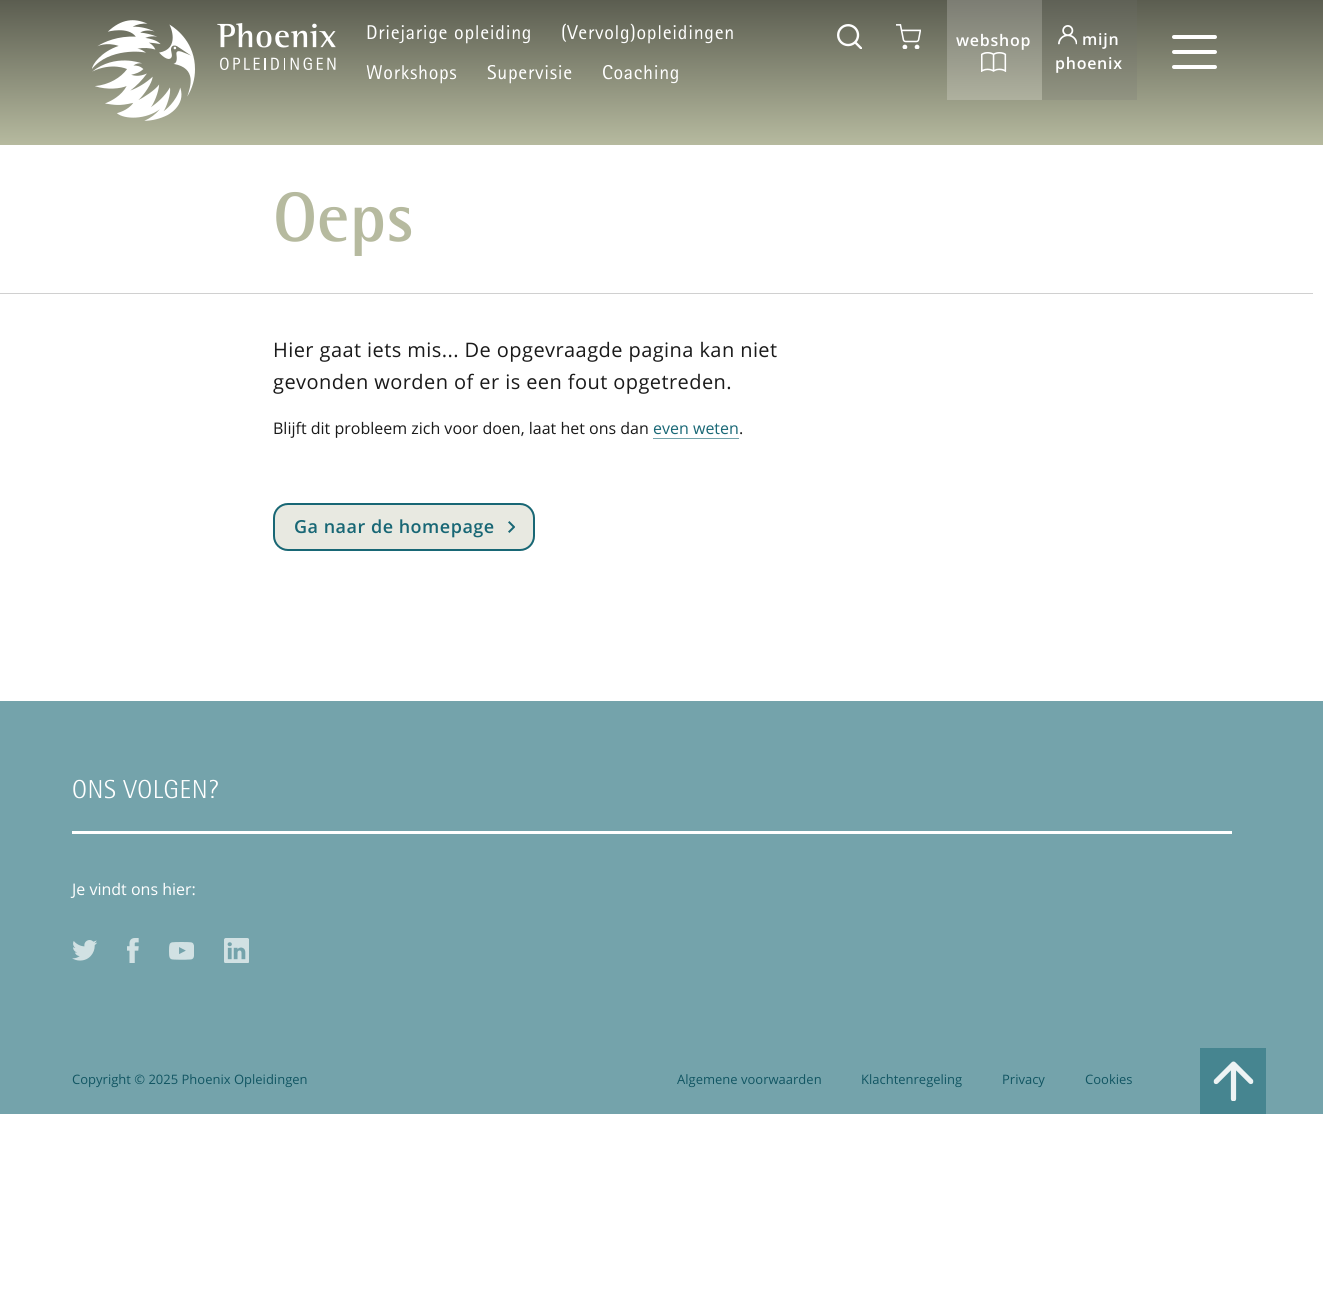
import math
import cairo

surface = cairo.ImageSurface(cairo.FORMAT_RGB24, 1323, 1299)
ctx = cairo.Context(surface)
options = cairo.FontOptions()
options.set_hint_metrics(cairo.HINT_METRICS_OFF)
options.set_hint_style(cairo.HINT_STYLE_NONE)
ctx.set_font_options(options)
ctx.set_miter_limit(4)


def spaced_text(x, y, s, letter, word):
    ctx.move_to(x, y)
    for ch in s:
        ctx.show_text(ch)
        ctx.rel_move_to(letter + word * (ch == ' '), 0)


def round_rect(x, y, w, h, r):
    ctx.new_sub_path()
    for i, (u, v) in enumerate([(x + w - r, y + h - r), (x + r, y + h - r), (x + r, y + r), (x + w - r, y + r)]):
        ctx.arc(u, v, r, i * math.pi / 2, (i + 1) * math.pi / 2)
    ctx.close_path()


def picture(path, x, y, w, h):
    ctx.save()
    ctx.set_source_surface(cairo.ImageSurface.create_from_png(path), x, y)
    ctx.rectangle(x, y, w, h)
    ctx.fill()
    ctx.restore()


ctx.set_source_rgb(1, 1, 1)
ctx.paint()
gradient = cairo.LinearGradient(662, 0, 662, 145)
gradient.add_color_stop_rgba(0, 0.357, 0.365, 0.314, 1)
gradient.add_color_stop_rgba(1, 0.714, 0.729, 0.624, 1)
ctx.set_source(gradient)
ctx.rectangle(0, 0, 1323, 145)
ctx.fill()
gradient = cairo.LinearGradient(662, 0, 662, 145)
gradient.add_color_stop_rgba(0, 0.373, 0.38, 0.337, 1)
gradient.add_color_stop_rgba(1, 0.659, 0.671, 0.588, 1)
ctx.set_source(gradient)
ctx.rectangle(1042, 0, 95, 100)
ctx.fill()
gradient = cairo.LinearGradient(662, 0, 662, 145)
gradient.add_color_stop_rgba(0, 0.486, 0.49, 0.451, 1)
gradient.add_color_stop_rgba(1, 0.773, 0.784, 0.698, 1)
ctx.set_source(gradient)
ctx.rectangle(947, 0, 95, 100)
ctx.fill()
picture("img1.png", 92, 20, 103, 101)
picture("img2.png", 217, 23, 119, 47)
ctx.select_font_face("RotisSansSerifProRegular")
ctx.set_font_size(20)
ctx.set_source_rgb(1, 1, 1)
spaced_text(366, 39, "Driejarige opleiding", 0.7, 0)
spaced_text(561, 39, "(Vervolg)opleidingen", 0.7, 0)
spaced_text(366, 79, "Workshops", 0.7, 0)
spaced_text(487, 79, "Supervisie", 0.7, 0)
spaced_text(602, 79, "Coaching", 0.7, 0)
picture("img3.png", 837, 24, 25, 25)
picture("img4.png", 896, 24, 25, 25)
ctx.select_font_face("Open Sans SemiBold")
ctx.set_font_size(16)
spaced_text(956, 46, "webshop", 0.75, 0)
picture("img5.png", 981, 52, 26, 20)
picture("img6.png", 1058, 25, 19, 20)
spaced_text(1082, 45, "mijn", 0.75, 0)
spaced_text(1055, 69, "phoenix", 0.75, 0)
round_rect(1172, 35, 45, 4, 2)
ctx.fill()
round_rect(1172, 50, 45, 4, 2)
ctx.fill()
round_rect(1172, 65, 45, 4, 2)
ctx.fill()
ctx.select_font_face("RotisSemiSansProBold", cairo.FONT_SLANT_NORMAL, cairo.FONT_WEIGHT_BOLD)
ctx.set_font_size(70)
ctx.set_source_rgb(0.714, 0.729, 0.624)
ctx.move_to(273, 241)
ctx.show_text("Oeps")
ctx.set_source_rgb(0.816, 0.816, 0.816)
ctx.rectangle(0, 293, 1313, 1)
ctx.fill()
ctx.select_font_face("Open Sans")
ctx.set_font_size(20)
ctx.set_source_rgb(0.102, 0.102, 0.102)
spaced_text(273, 357, "Hier gaat iets mis... De opgevraagde pagina kan niet", 0.42, 0)
spaced_text(273, 389, "gevonden worden of er is een fout opgetreden.", 0.42, 0)
ctx.set_font_size(16)
ctx.move_to(273, 434)
ctx.show_text("Blijft dit probleem zich voor doen, laat het ons dan")
ctx.set_source_rgb(0.094, 0.404, 0.459)
ctx.move_to(653, 434)
ctx.show_text("even weten")
ctx.set_source_rgb(0.455, 0.639, 0.671)
ctx.rectangle(653, 438, 86, 1)
ctx.fill()
ctx.set_source_rgb(0.102, 0.102, 0.102)
ctx.move_to(739, 434)
ctx.show_text(".")
ctx.set_source_rgb(0.91, 0.914, 0.882)
round_rect(273, 503, 262, 48, 15)
ctx.fill()
picture("img7.png", 508, 521, 7, 12)
round_rect(274, 504, 260, 46, 14)
ctx.set_source_rgb(0.094, 0.404, 0.459)
ctx.stroke()
ctx.select_font_face("Open Sans SemiBold")
ctx.set_font_size(18)
spaced_text(294, 533, "Ga naar de homepage", 0.5, 0)
ctx.set_source_rgb(0.455, 0.639, 0.671)
ctx.rectangle(0, 701, 1323, 413)
ctx.fill()
ctx.set_source_rgb(1, 1, 1)
ctx.rectangle(72, 831, 1160, 3)
ctx.fill()
ctx.select_font_face("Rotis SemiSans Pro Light")
ctx.set_font_size(26)
spaced_text(72, 798, "ONS VOLGEN?", 0.6, 0)
ctx.select_font_face("Open Sans")
ctx.set_font_size(16)
ctx.move_to(72, 895)
ctx.show_text("Je vindt ons hier:")
picture("img8.png", 72, 940, 25, 21)
picture("img9.png", 127, 938, 12, 25)
picture("img10.png", 169, 942, 25, 18)
picture("img11.png", 224, 938, 25, 25)
ctx.set_font_size(13)
ctx.set_source_rgb(0.067, 0.333, 0.384)
ctx.move_to(72, 1084)
ctx.show_text("Copyright © 2025 Phoenix Opleidingen")
ctx.move_to(677, 1084)
ctx.show_text("Algemene voorwaarden")
ctx.move_to(861, 1084)
ctx.show_text("Klachtenregeling")
ctx.move_to(1002, 1084)
ctx.show_text("Privacy")
ctx.move_to(1085, 1084)
ctx.show_text("Cookies")
ctx.set_source_rgb(0.275, 0.522, 0.565)
ctx.rectangle(1200, 1048, 66, 66)
ctx.fill()
picture("img12.png", 1213, 1061, 41, 40)
surface.write_to_png("page.png")
